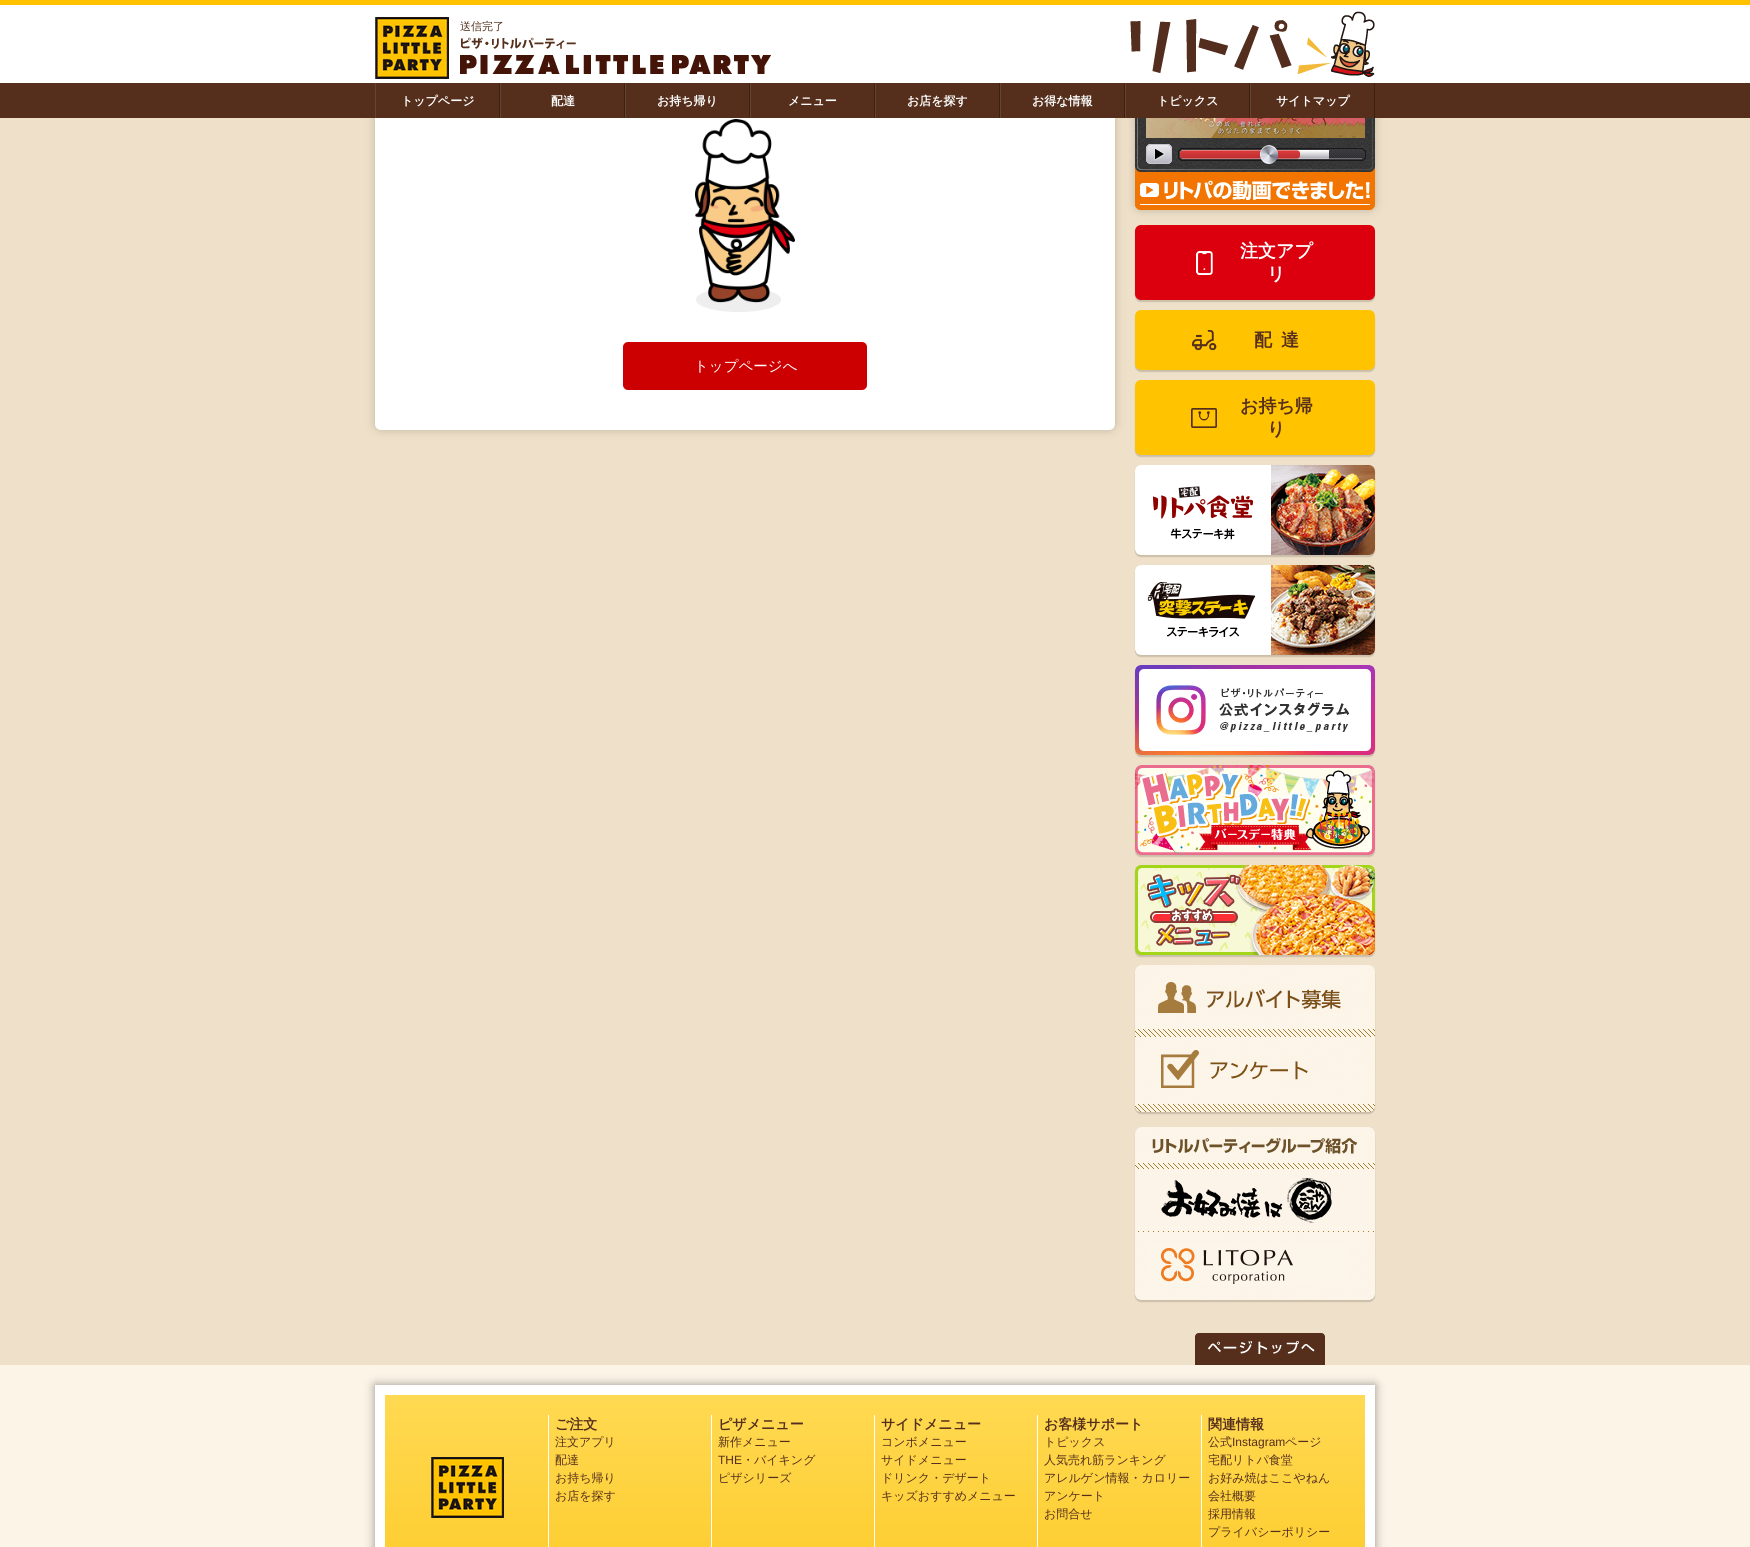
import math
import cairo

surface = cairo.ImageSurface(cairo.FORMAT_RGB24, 1750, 1547)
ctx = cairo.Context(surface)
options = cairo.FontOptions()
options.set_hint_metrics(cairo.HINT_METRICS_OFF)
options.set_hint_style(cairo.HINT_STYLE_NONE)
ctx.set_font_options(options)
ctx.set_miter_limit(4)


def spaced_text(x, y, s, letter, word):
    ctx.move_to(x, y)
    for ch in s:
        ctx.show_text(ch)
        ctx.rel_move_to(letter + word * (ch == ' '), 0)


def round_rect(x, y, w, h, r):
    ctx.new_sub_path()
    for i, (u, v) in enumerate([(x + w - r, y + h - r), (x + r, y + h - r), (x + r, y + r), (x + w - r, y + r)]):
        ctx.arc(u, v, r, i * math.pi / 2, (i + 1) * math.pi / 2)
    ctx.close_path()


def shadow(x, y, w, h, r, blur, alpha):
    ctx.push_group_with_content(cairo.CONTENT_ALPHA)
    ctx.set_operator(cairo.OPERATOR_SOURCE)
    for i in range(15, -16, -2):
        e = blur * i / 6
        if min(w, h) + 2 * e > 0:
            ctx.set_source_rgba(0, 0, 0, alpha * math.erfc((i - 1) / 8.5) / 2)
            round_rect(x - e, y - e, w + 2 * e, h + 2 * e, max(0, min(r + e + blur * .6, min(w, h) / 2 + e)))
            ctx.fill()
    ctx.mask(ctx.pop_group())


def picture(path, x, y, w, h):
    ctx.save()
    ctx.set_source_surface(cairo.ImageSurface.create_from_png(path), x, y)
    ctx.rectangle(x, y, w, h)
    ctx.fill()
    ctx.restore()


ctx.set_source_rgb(0.937, 0.882, 0.788)
ctx.paint()
ctx.set_source_rgb(0, 0, 0)
shadow(375, 11, 740, 419, 6, 5, 0.2)
ctx.set_source_rgb(1, 1, 1)
round_rect(375, 11, 740, 419, 6)
ctx.fill()
ctx.set_source_rgb(0, 0, 0)
shadow(1135, 227, 240, 75, 6, 0.5, 0.15)
ctx.set_source_rgb(0.863, 0, 0.055)
round_rect(1135, 225, 240, 75, 6)
ctx.fill()
ctx.set_source_rgb(0, 0, 0)
shadow(1135, 11, 240, 199, 6, 5, 0.2)
ctx.set_source_rgb(1, 1, 1)
ctx.rectangle(0, 5, 1750, 78)
ctx.fill()
ctx.set_source_rgb(1, 0.757, 0)
ctx.rectangle(0, 0, 1750, 5)
ctx.fill()
picture("img1.png", 375, 17, 396, 62)
ctx.select_font_face("WenQuanYi Zen Hei Medium")
ctx.set_font_size(11)
ctx.set_source_rgb(0.333, 0.184, 0.11)
ctx.move_to(460, 30)
ctx.show_text("送信完了")
picture("img2.png", 1130, 11, 245, 66)
ctx.rectangle(0, 83, 1750, 35)
ctx.fill()
ctx.set_source_rgb(0.235, 0.129, 0.078)
ctx.rectangle(499, 83, 1, 35)
ctx.fill()
ctx.set_source_rgb(0.4, 0.267, 0.2)
ctx.rectangle(375, 83, 1, 35)
ctx.fill()
ctx.select_font_face("WenQuanYi Zen Hei", cairo.FONT_SLANT_NORMAL, cairo.FONT_WEIGHT_BOLD)
ctx.set_font_size(12)
ctx.set_source_rgb(1, 1, 1)
ctx.move_to(401, 105)
ctx.show_text("トップページ")
ctx.set_source_rgb(0.235, 0.129, 0.078)
ctx.rectangle(624, 83, 1, 35)
ctx.fill()
ctx.set_source_rgb(0.4, 0.267, 0.2)
ctx.rectangle(500, 83, 1, 35)
ctx.fill()
ctx.set_source_rgb(1, 1, 1)
ctx.move_to(551, 105)
ctx.show_text("配達")
ctx.set_source_rgb(0.235, 0.129, 0.078)
ctx.rectangle(749, 83, 1, 35)
ctx.fill()
ctx.set_source_rgb(0.4, 0.267, 0.2)
ctx.rectangle(625, 83, 1, 35)
ctx.fill()
ctx.set_source_rgb(1, 1, 1)
ctx.move_to(657, 105)
ctx.show_text("お持ち帰り")
ctx.set_source_rgb(0.235, 0.129, 0.078)
ctx.rectangle(874, 83, 1, 35)
ctx.fill()
ctx.set_source_rgb(0.4, 0.267, 0.2)
ctx.rectangle(750, 83, 1, 35)
ctx.fill()
ctx.set_source_rgb(1, 1, 1)
ctx.move_to(788, 105)
ctx.show_text("メニュー")
ctx.set_source_rgb(0.235, 0.129, 0.078)
ctx.rectangle(999, 83, 1, 35)
ctx.fill()
ctx.set_source_rgb(0.4, 0.267, 0.2)
ctx.rectangle(875, 83, 1, 35)
ctx.fill()
ctx.set_source_rgb(1, 1, 1)
ctx.move_to(907, 105)
ctx.show_text("お店を探す")
ctx.set_source_rgb(0.235, 0.129, 0.078)
ctx.rectangle(1124, 83, 1, 35)
ctx.fill()
ctx.set_source_rgb(0.4, 0.267, 0.2)
ctx.rectangle(1000, 83, 1, 35)
ctx.fill()
ctx.set_source_rgb(1, 1, 1)
ctx.move_to(1032, 105)
ctx.show_text("お得な情報")
ctx.set_source_rgb(0.235, 0.129, 0.078)
ctx.rectangle(1249, 83, 1, 35)
ctx.fill()
ctx.set_source_rgb(0.4, 0.267, 0.2)
ctx.rectangle(1125, 83, 1, 35)
ctx.fill()
ctx.set_source_rgb(1, 1, 1)
ctx.move_to(1157, 105)
ctx.show_text("トピックス")
ctx.set_source_rgb(0.235, 0.129, 0.078)
ctx.rectangle(1374, 83, 1, 35)
ctx.fill()
ctx.set_source_rgb(0.4, 0.267, 0.2)
ctx.rectangle(1250, 83, 1, 35)
ctx.fill()
ctx.set_source_rgb(1, 1, 1)
ctx.move_to(1276, 105)
ctx.show_text("サイトマップ")
picture("img3.png", 695, 119, 100, 193)
ctx.set_source_rgb(0.8, 0, 0)
round_rect(623, 342, 244, 48, 5)
ctx.fill()
ctx.select_font_face("WenQuanYi Zen Hei Medium")
ctx.set_font_size(14.5)
ctx.set_source_rgb(1, 1, 1)
ctx.move_to(694, 371)
ctx.show_text("トップページへ")
picture("img4.png", 1135, 118, 240, 92)
picture("img5.png", 1196, 251, 17, 24)
ctx.select_font_face("WenQuanYi Zen Hei", cairo.FONT_SLANT_NORMAL, cairo.FONT_WEIGHT_BOLD)
ctx.set_font_size(18)
ctx.move_to(1240, 257)
ctx.show_text("注文アプ")
ctx.move_to(1267, 280)
ctx.show_text("リ")
ctx.set_source_rgb(0, 0, 0)
shadow(1135, 312, 240, 60, 6, 0.5, 0.15)
ctx.set_source_rgb(1, 0.765, 0)
round_rect(1135, 310, 240, 60, 6)
ctx.fill()
picture("img6.png", 1192, 330, 25, 21)
ctx.set_source_rgb(0.333, 0.184, 0.11)
spaced_text(1254, 346, "配達", 9, 0)
ctx.set_source_rgb(0, 0, 0)
shadow(1135, 382, 240, 75, 6, 0.5, 0.15)
ctx.set_source_rgb(1, 0.765, 0)
round_rect(1135, 380, 240, 75, 6)
ctx.fill()
picture("img7.png", 1191, 408, 26, 20)
ctx.set_source_rgb(0.333, 0.184, 0.11)
ctx.move_to(1240, 412)
ctx.show_text("お持ち帰")
ctx.move_to(1267, 435)
ctx.show_text("り")
ctx.set_source_rgb(0, 0, 0)
shadow(1135, 467, 240, 90, 6, 0.5, 0.15)
picture("img8.png", 1135, 465, 240, 90)
shadow(1135, 567, 240, 90, 6, 0.5, 0.15)
picture("img9.png", 1135, 565, 240, 90)
shadow(1135, 667, 240, 90, 6, 0.5, 0.15)
picture("img10.png", 1135, 665, 240, 90)
shadow(1135, 767, 240, 90, 6, 0.5, 0.15)
picture("img11.png", 1135, 765, 240, 90)
shadow(1135, 867, 240, 90, 6, 0.5, 0.15)
picture("img12.png", 1135, 865, 240, 90)
shadow(1135, 967, 240, 147, 6, 0.5, 0.15)
picture("img13.png", 1135, 965, 240, 72)
picture("img14.png", 1135, 1037, 240, 75)
shadow(1135, 1129, 240, 173, 6, 0.5, 0.15)
picture("img15.png", 1135, 1127, 240, 42)
picture("img16.png", 1135, 1169, 240, 63)
picture("img17.png", 1135, 1232, 240, 68)
ctx.set_source_rgb(0.988, 0.957, 0.906)
ctx.rectangle(0, 1365, 1750, 182)
ctx.fill()
picture("img18.png", 1195, 1333, 130, 32)
ctx.set_source_rgb(0, 0, 0)
shadow(375, 1385, 1000, 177, 0, 5, 0.4)
ctx.set_source_rgb(1, 1, 1)
ctx.rectangle(375, 1385, 1000, 162)
ctx.fill()
gradient = cairo.LinearGradient(385, 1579, 385, 1395)
gradient.add_color_stop_rgba(0.2, 0.996, 0.812, 0.208, 1)
gradient.add_color_stop_rgba(0.97, 1, 0.851, 0.318, 1)
ctx.set_source(gradient)
ctx.rectangle(385, 1395, 980, 152)
ctx.fill()
ctx.set_source_rgb(1, 1, 1)
ctx.rectangle(548, 1415, 1, 132)
ctx.fill()
picture("img19.png", 431, 1457, 73, 61)
ctx.rectangle(711, 1415, 1, 132)
ctx.fill()
ctx.set_font_size(14)
ctx.set_source_rgb(0.333, 0.184, 0.11)
ctx.move_to(555, 1429)
ctx.show_text("ご注文")
ctx.select_font_face("WenQuanYi Zen Hei Medium")
ctx.set_font_size(12)
ctx.move_to(555, 1446)
ctx.show_text("注文アプリ")
ctx.move_to(555, 1464)
ctx.show_text("配達")
ctx.move_to(555, 1482)
ctx.show_text("お持ち帰り")
ctx.move_to(555, 1500)
ctx.show_text("お店を探す")
ctx.set_source_rgb(1, 1, 1)
ctx.rectangle(874, 1415, 1, 132)
ctx.fill()
ctx.select_font_face("WenQuanYi Zen Hei", cairo.FONT_SLANT_NORMAL, cairo.FONT_WEIGHT_BOLD)
ctx.set_font_size(14)
ctx.set_source_rgb(0.333, 0.184, 0.11)
ctx.move_to(718, 1429)
ctx.show_text("ピザメニュー")
ctx.select_font_face("WenQuanYi Zen Hei Medium")
ctx.set_font_size(12)
ctx.move_to(718, 1446)
ctx.show_text("新作メニュー")
ctx.select_font_face("Liberation Sans")
ctx.move_to(718, 1464)
ctx.show_text("THE")
ctx.select_font_face("WenQuanYi Zen Hei Medium")
ctx.move_to(742, 1464)
ctx.show_text("・バイキング")
ctx.move_to(718, 1482)
ctx.show_text("ピザシリーズ")
ctx.set_source_rgb(1, 1, 1)
ctx.rectangle(1037, 1415, 1, 132)
ctx.fill()
ctx.select_font_face("WenQuanYi Zen Hei", cairo.FONT_SLANT_NORMAL, cairo.FONT_WEIGHT_BOLD)
ctx.set_font_size(14)
ctx.set_source_rgb(0.333, 0.184, 0.11)
ctx.move_to(881, 1429)
ctx.show_text("サイドメニュー")
ctx.select_font_face("WenQuanYi Zen Hei Medium")
ctx.set_font_size(12)
ctx.move_to(881, 1446)
ctx.show_text("コンボメニュー")
ctx.move_to(881, 1464)
ctx.show_text("サイドメニュー")
ctx.move_to(881, 1482)
ctx.show_text("ドリンク・デザート")
ctx.move_to(881, 1500)
ctx.show_text("キッズおすすめメニュー")
ctx.set_source_rgb(1, 1, 1)
ctx.rectangle(1201, 1415, 1, 132)
ctx.fill()
ctx.select_font_face("WenQuanYi Zen Hei", cairo.FONT_SLANT_NORMAL, cairo.FONT_WEIGHT_BOLD)
ctx.set_font_size(14)
ctx.set_source_rgb(0.333, 0.184, 0.11)
ctx.move_to(1044, 1429)
ctx.show_text("お客様サポート")
ctx.select_font_face("WenQuanYi Zen Hei Medium")
ctx.set_font_size(12)
ctx.move_to(1044, 1446)
ctx.show_text("トピックス")
ctx.move_to(1044, 1464)
ctx.show_text("人気売れ筋ランキング")
ctx.move_to(1044, 1482)
ctx.show_text("アレルゲン情報・カロリー")
ctx.move_to(1044, 1500)
ctx.show_text("アンケート")
ctx.move_to(1044, 1518)
ctx.show_text("お問合せ")
ctx.select_font_face("WenQuanYi Zen Hei", cairo.FONT_SLANT_NORMAL, cairo.FONT_WEIGHT_BOLD)
ctx.set_font_size(14)
ctx.move_to(1208, 1429)
ctx.show_text("関連情報")
ctx.select_font_face("WenQuanYi Zen Hei Medium")
ctx.set_font_size(12)
ctx.move_to(1208, 1446)
ctx.show_text("公式")
ctx.select_font_face("Liberation Sans")
ctx.move_to(1232, 1446)
ctx.show_text("Instagram")
ctx.select_font_face("WenQuanYi Zen Hei Medium")
ctx.move_to(1285, 1446)
ctx.show_text("ページ")
ctx.move_to(1208, 1464)
ctx.show_text("宅配リトパ食堂")
ctx.move_to(1208, 1482)
ctx.show_text("お好み焼はここやねん")
ctx.move_to(1208, 1500)
ctx.show_text("会社概要")
ctx.move_to(1208, 1518)
ctx.show_text("採用情報")
ctx.move_to(1208, 1536)
ctx.show_text("プライバシーポリシー")
surface.write_to_png("page.png")
